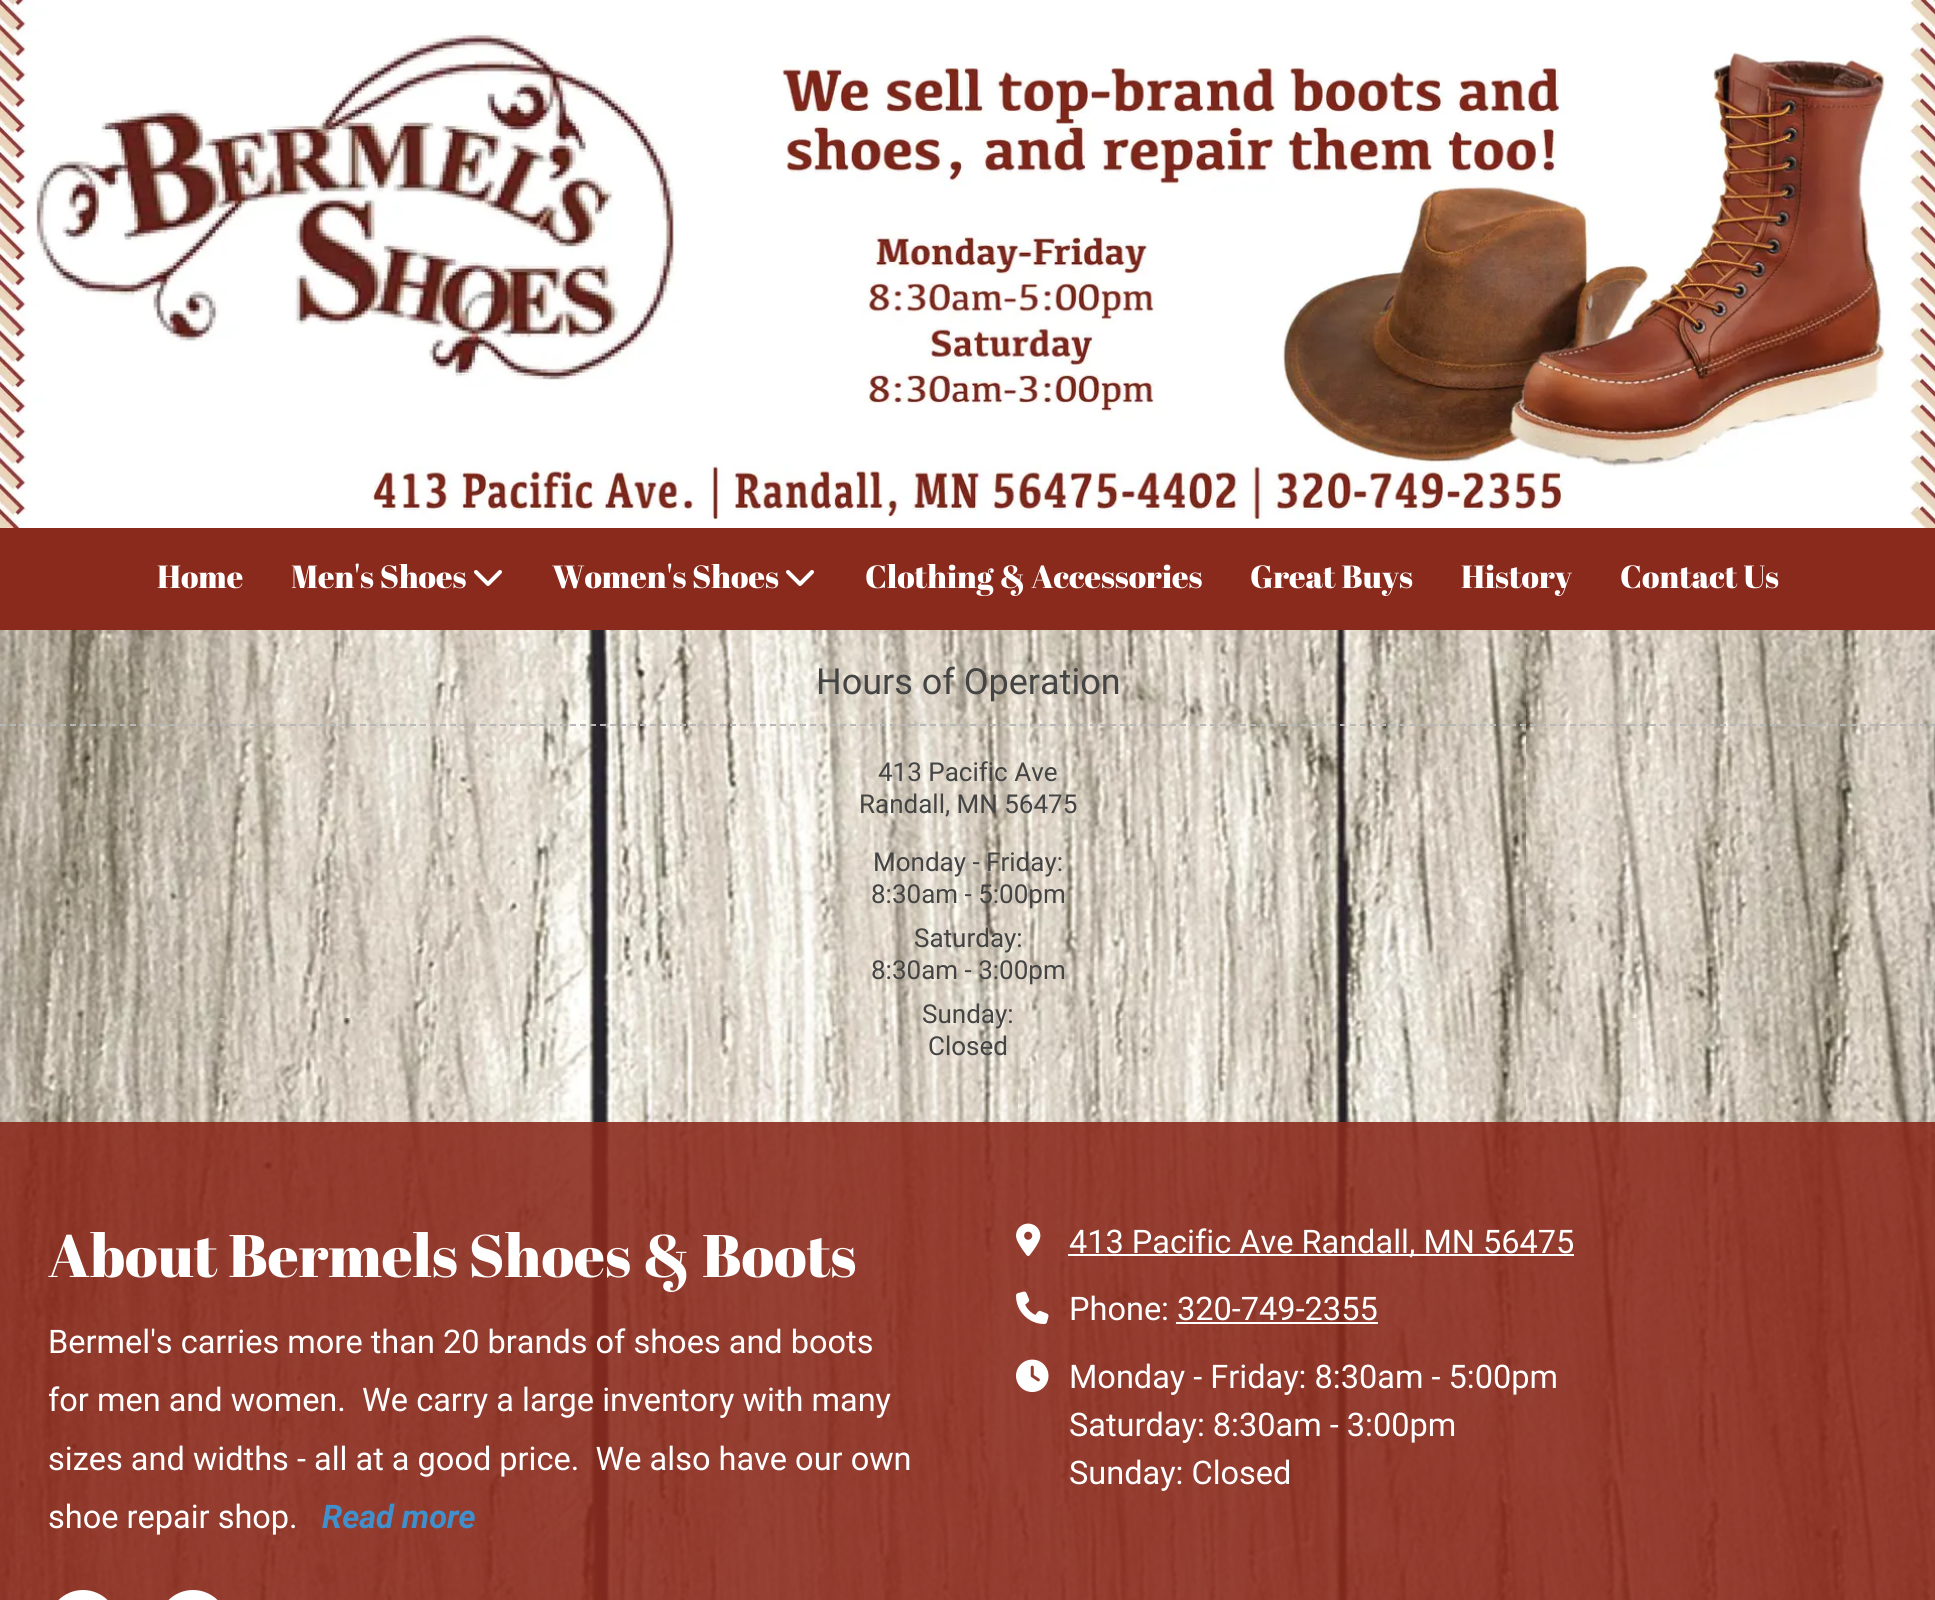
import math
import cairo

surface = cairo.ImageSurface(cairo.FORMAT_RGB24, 1935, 1600)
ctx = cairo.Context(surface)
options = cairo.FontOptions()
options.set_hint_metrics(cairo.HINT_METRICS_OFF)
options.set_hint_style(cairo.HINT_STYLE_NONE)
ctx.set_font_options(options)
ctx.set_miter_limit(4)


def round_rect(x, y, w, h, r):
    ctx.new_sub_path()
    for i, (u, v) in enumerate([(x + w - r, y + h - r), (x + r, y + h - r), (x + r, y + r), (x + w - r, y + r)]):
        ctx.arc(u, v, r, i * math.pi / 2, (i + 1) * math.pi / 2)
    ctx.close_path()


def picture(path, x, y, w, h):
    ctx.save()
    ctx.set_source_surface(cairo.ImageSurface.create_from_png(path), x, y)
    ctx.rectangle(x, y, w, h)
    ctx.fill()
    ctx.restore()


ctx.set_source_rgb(1, 1, 1)
ctx.paint()
picture("img1.png", 0, 0, 1935, 528)
ctx.set_source_rgb(0.541, 0.165, 0.114)
ctx.rectangle(0, 528, 1935, 102)
ctx.fill()
ctx.select_font_face("Abril Fatface")
ctx.set_font_size(32)
ctx.set_source_rgb(1, 1, 1)
ctx.move_to(157, 588)
ctx.show_text("Home")
ctx.move_to(291, 588)
ctx.show_text("Men's Shoes")
picture("img2.png", 474, 570, 28, 16)
ctx.move_to(552, 588)
ctx.show_text("Women's Shoes")
picture("img2.png", 786, 570, 28, 16)
ctx.move_to(865, 588)
ctx.show_text("Clothing & Accessories")
ctx.move_to(1250, 588)
ctx.show_text("Great Buys")
ctx.move_to(1461, 588)
ctx.show_text("History")
ctx.move_to(1620, 588)
ctx.show_text("Contact Us")
picture("img6.png", 0, 630, 1935, 970)
ctx.select_font_face("Roboto")
ctx.set_font_size(36)
ctx.set_source_rgb(0.267, 0.267, 0.267)
ctx.move_to(816, 694)
ctx.show_text("Hours of Operation")
ctx.new_path()
ctx.move_to(0, 725)
ctx.line_to(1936, 725)
ctx.set_source_rgb(0.718, 0.718, 0.718)
ctx.set_dash([6, 4])
ctx.stroke()
ctx.set_font_size(26)
ctx.set_source_rgb(0.267, 0.267, 0.267)
ctx.move_to(878, 781)
ctx.show_text("413 Pacific Ave")
ctx.move_to(859, 813)
ctx.show_text("Randall, MN 56475")
ctx.move_to(873, 871)
ctx.show_text("Monday - Friday:")
ctx.move_to(871, 903)
ctx.show_text("8:30am - 5:00pm")
ctx.move_to(914, 947)
ctx.show_text("Saturday:")
ctx.move_to(871, 979)
ctx.show_text("8:30am - 3:00pm")
ctx.move_to(922, 1023)
ctx.show_text("Sunday:")
ctx.move_to(928, 1055)
ctx.show_text("Closed")
ctx.set_source_rgba(0.541, 0.165, 0.114, 0.89)
ctx.rectangle(0, 1122, 1935, 478)
ctx.fill()
ctx.select_font_face("Abril Fatface")
ctx.set_font_size(60)
ctx.set_source_rgb(1, 1, 1)
ctx.move_to(48, 1277)
ctx.show_text("About Bermels Shoes & Boots")
ctx.select_font_face("Roboto")
ctx.set_font_size(32.5)
ctx.move_to(48, 1353)
ctx.show_text("Bermel's carries more than 20 brands of shoes and boots")
ctx.move_to(48, 1411)
ctx.show_text("for men and women.  We carry a large inventory with many")
ctx.move_to(48, 1470)
ctx.show_text("sizes and widths - all at a good price.  We also have our own")
ctx.move_to(48, 1528)
ctx.show_text("shoe repair shop.")
ctx.select_font_face("Roboto", cairo.FONT_SLANT_ITALIC, cairo.FONT_WEIGHT_BOLD)
ctx.set_source_rgb(0.251, 0.565, 0.804)
ctx.move_to(322, 1528)
ctx.show_text("Read more")
ctx.set_source_rgb(1, 1, 1)
round_rect(48, 1590, 70, 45, 35)
ctx.fill()
round_rect(158, 1590, 70, 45, 35)
ctx.fill()
picture("img3.png", 1016, 1223, 25, 33)
ctx.rectangle(1068, 1254, 506, 2)
ctx.fill()
ctx.select_font_face("Roboto")
ctx.move_to(1069, 1253)
ctx.show_text("413 Pacific Ave Randall, MN 56475")
picture("img4.png", 1016, 1291, 33, 34)
ctx.move_to(1069, 1320)
ctx.show_text("Phone: 320-749-2355")
ctx.rectangle(1176, 1322, 202, 2)
ctx.fill()
picture("img5.png", 1016, 1359, 33, 34)
ctx.move_to(1069, 1388)
ctx.show_text("Monday - Friday: 8:30am - 5:00pm")
ctx.move_to(1069, 1436)
ctx.show_text("Saturday: 8:30am - 3:00pm")
ctx.move_to(1069, 1484)
ctx.show_text("Sunday: Closed")
surface.write_to_png("page.png")
